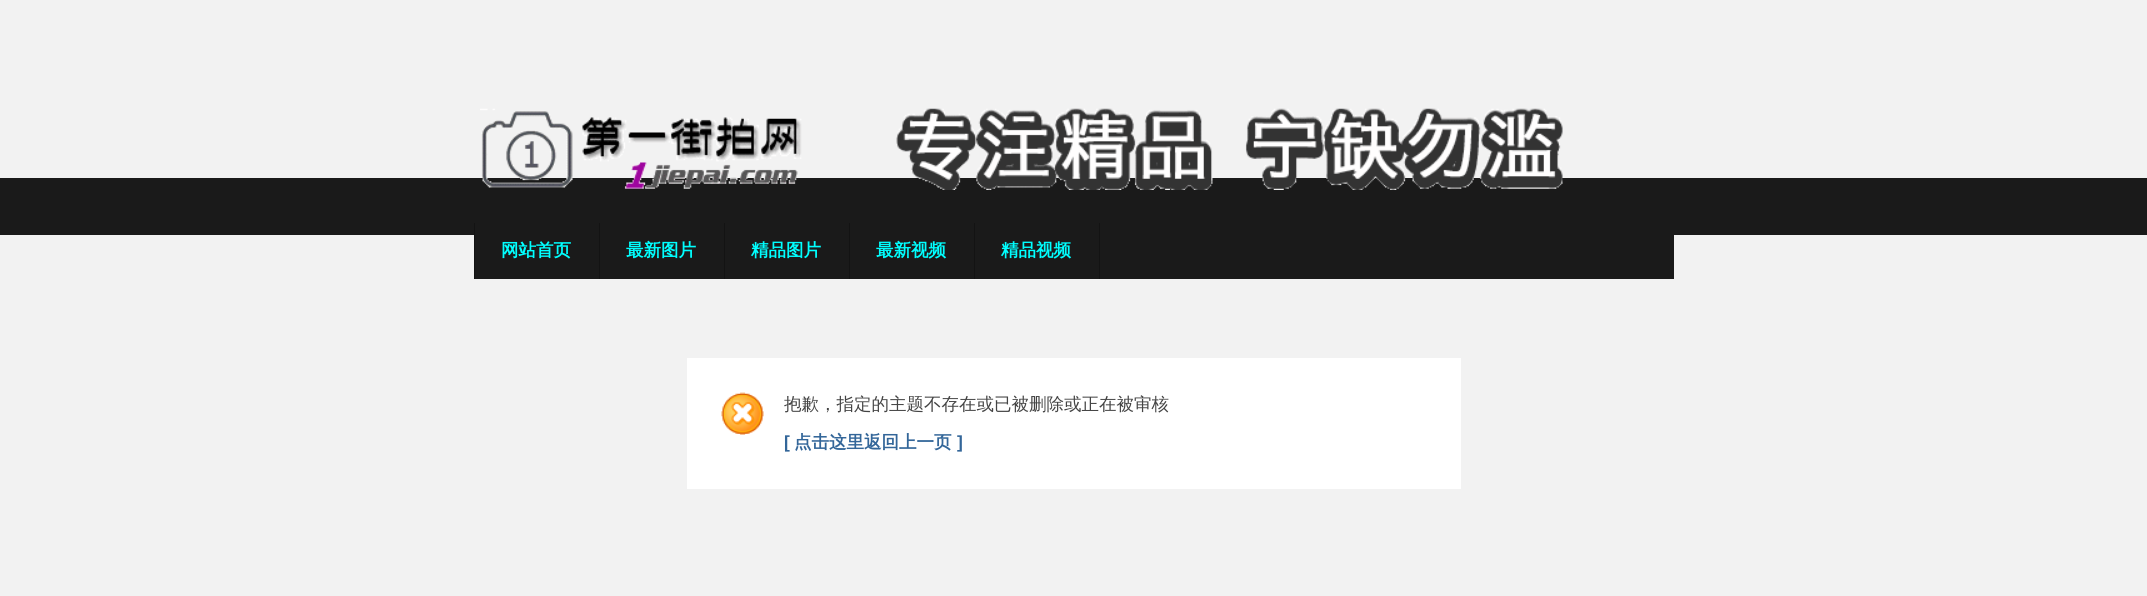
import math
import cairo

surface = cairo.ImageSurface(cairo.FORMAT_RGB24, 2147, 596)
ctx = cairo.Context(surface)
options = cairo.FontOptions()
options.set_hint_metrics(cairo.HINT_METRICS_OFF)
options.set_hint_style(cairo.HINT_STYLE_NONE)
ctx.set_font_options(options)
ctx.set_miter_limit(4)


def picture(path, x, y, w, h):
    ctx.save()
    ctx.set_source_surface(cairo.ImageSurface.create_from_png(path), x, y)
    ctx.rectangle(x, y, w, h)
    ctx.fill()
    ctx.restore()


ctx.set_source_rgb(0.949, 0.949, 0.949)
ctx.paint()
ctx.set_source_rgb(0.102, 0.102, 0.102)
ctx.rectangle(0, 178, 2147, 57)
ctx.fill()
picture("img1.png", 480, 108, 1083, 82)
ctx.rectangle(475, 235, 1199, 44)
ctx.fill()
ctx.set_source_rgb(0.075, 0.075, 0.075)
ctx.rectangle(474, 223, 1, 56)
ctx.fill()
ctx.rectangle(599, 223, 1, 56)
ctx.fill()
ctx.select_font_face("WenQuanYi Zen Hei", cairo.FONT_SLANT_NORMAL, cairo.FONT_WEIGHT_BOLD)
ctx.set_font_size(17.5)
ctx.set_source_rgb(0, 1, 1)
ctx.move_to(501, 256)
ctx.show_text("网站首页")
ctx.set_source_rgb(0.075, 0.075, 0.075)
ctx.rectangle(724, 223, 1, 56)
ctx.fill()
ctx.set_source_rgb(0, 1, 1)
ctx.move_to(626, 256)
ctx.show_text("最新图片")
ctx.set_source_rgb(0.075, 0.075, 0.075)
ctx.rectangle(849, 223, 1, 56)
ctx.fill()
ctx.set_source_rgb(0, 1, 1)
ctx.move_to(751, 256)
ctx.show_text("精品图片")
ctx.set_source_rgb(0.075, 0.075, 0.075)
ctx.rectangle(974, 223, 1, 56)
ctx.fill()
ctx.set_source_rgb(0, 1, 1)
ctx.move_to(876, 256)
ctx.show_text("最新视频")
ctx.set_source_rgb(0.075, 0.075, 0.075)
ctx.rectangle(1099, 223, 1, 56)
ctx.fill()
ctx.set_source_rgb(0, 1, 1)
ctx.move_to(1001, 256)
ctx.show_text("精品视频")
ctx.set_source_rgb(1, 1, 1)
ctx.rectangle(687, 358, 774, 131)
ctx.fill()
picture("img2.png", 721, 392, 43, 43)
ctx.select_font_face("WenQuanYi Zen Hei Medium")
ctx.set_source_rgb(0.267, 0.267, 0.267)
ctx.move_to(784, 410)
ctx.show_text("抱歉，指定的主题不存在或已被删除或正在被审核")
ctx.select_font_face("Liberation Sans", cairo.FONT_SLANT_NORMAL, cairo.FONT_WEIGHT_BOLD)
ctx.set_source_rgb(0.2, 0.4, 0.6)
ctx.move_to(784, 448)
ctx.show_text("[")
ctx.select_font_face("WenQuanYi Zen Hei", cairo.FONT_SLANT_NORMAL, cairo.FONT_WEIGHT_BOLD)
ctx.move_to(794, 448)
ctx.show_text("点击这里返回上一页")
ctx.select_font_face("Liberation Sans", cairo.FONT_SLANT_NORMAL, cairo.FONT_WEIGHT_BOLD)
ctx.move_to(957, 448)
ctx.show_text("]")
surface.write_to_png("page.png")
